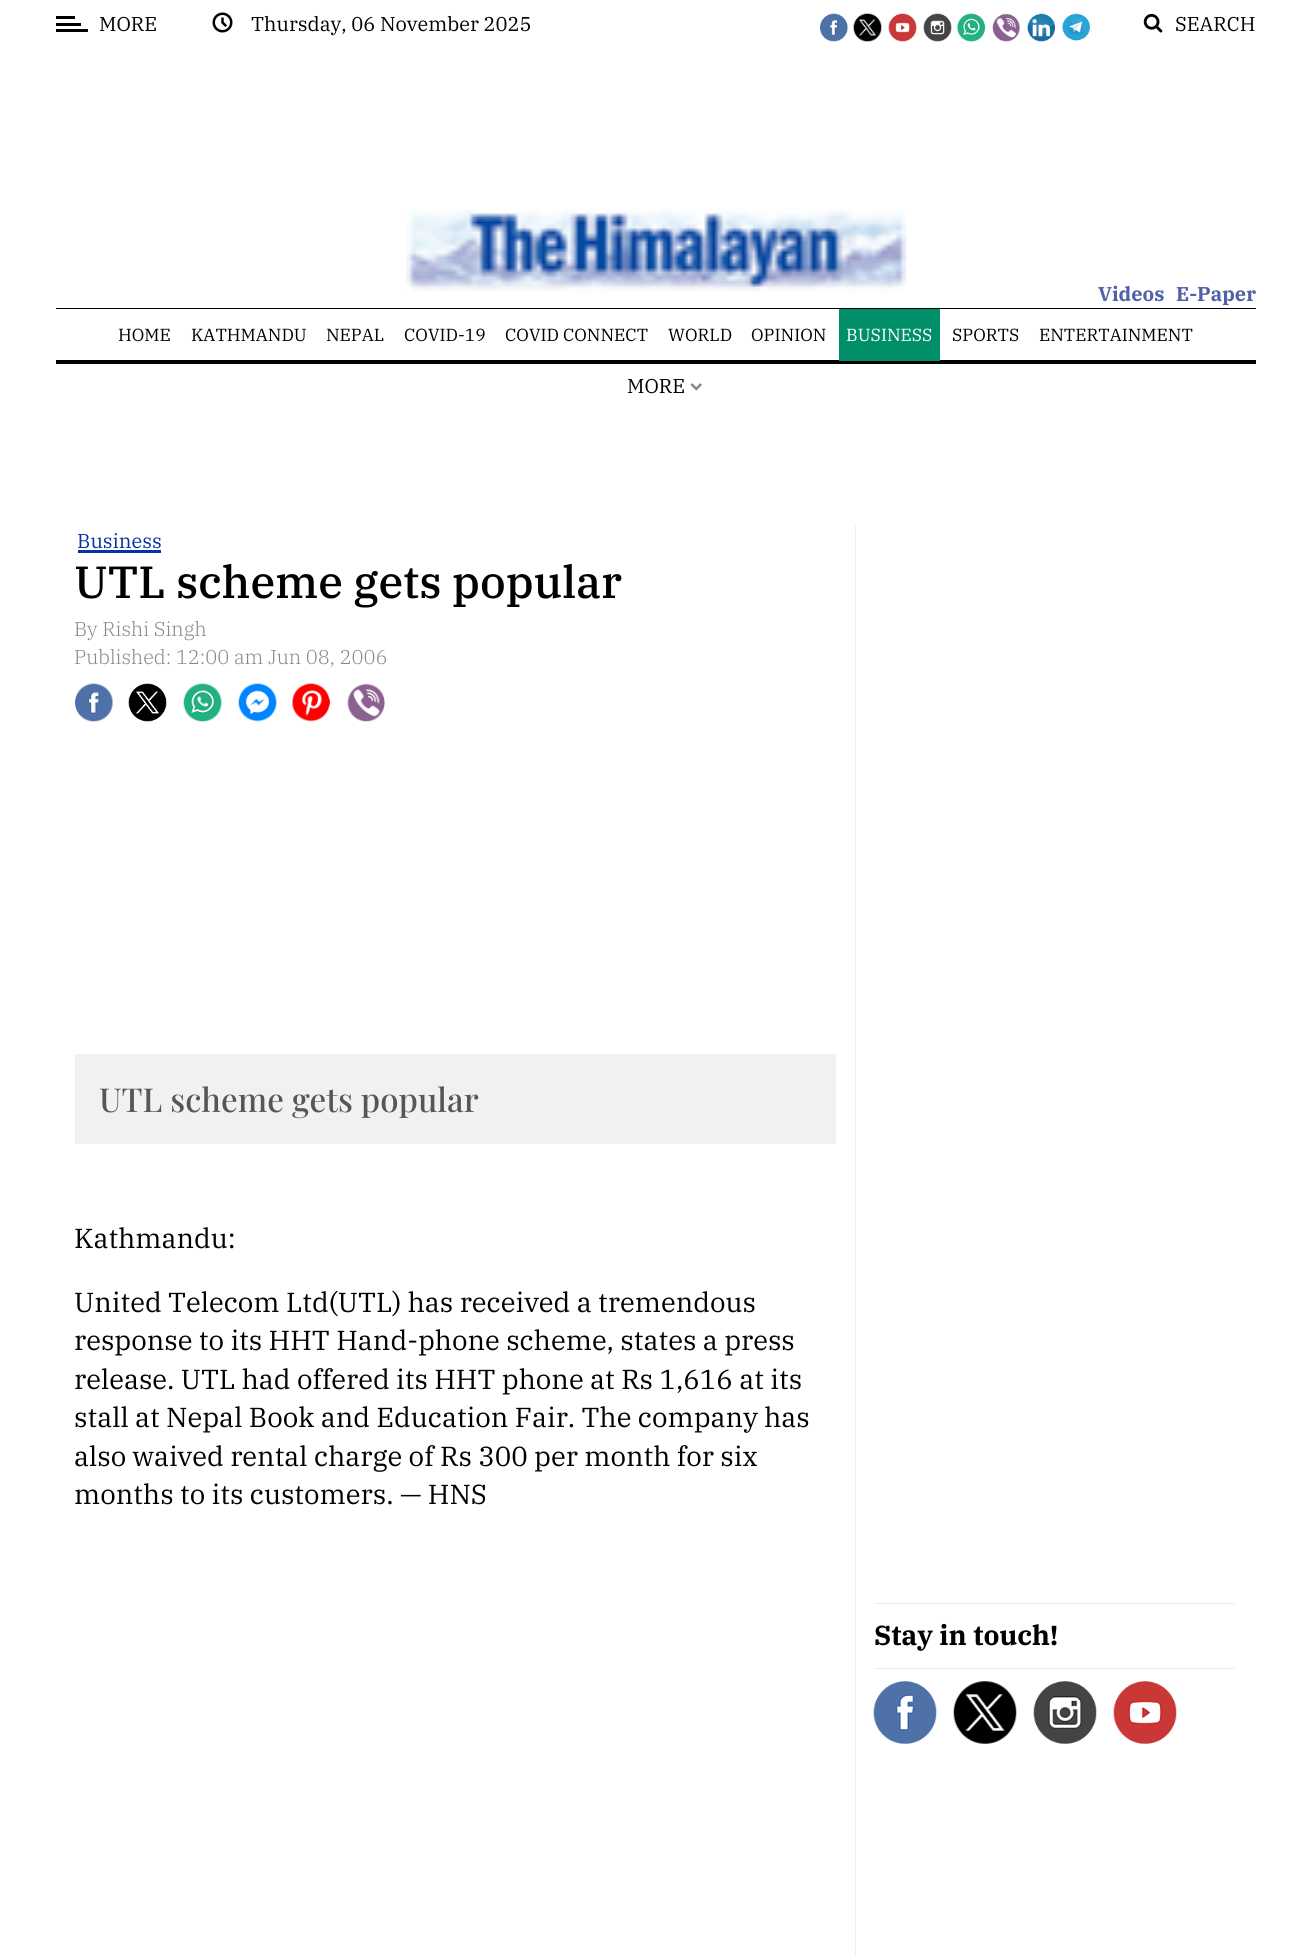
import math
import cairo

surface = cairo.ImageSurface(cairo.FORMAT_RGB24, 1311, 1957)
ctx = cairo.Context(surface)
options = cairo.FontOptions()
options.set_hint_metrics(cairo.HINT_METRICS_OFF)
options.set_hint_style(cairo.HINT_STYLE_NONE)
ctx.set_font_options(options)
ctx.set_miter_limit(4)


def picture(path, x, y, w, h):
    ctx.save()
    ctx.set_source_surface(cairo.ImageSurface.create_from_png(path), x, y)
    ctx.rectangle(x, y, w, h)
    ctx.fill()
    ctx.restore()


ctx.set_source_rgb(1, 1, 1)
ctx.paint()
ctx.set_source_rgb(0, 0, 0)
ctx.rectangle(56, 29, 32, 3)
ctx.fill()
ctx.rectangle(56, 16, 19, 3)
ctx.fill()
ctx.rectangle(56, 23, 25, 3)
ctx.fill()
ctx.select_font_face("IBM Plex Serif")
ctx.set_font_size(20)
ctx.move_to(99, 31)
ctx.show_text("MORE")
picture("img1.png", 212, 12, 21, 21)
ctx.move_to(251, 31)
ctx.show_text("Thursday, 06 November 2025")
picture("img2.png", 820, 13, 28, 29)
picture("img3.png", 853, 13, 29, 29)
picture("img4.png", 888, 13, 29, 29)
picture("img5.png", 923, 13, 29, 29)
picture("img6.png", 957, 13, 28, 29)
picture("img7.png", 992, 13, 28, 29)
picture("img8.png", 1027, 13, 28, 29)
picture("img9.png", 1062, 13, 28, 28)
picture("img10.png", 1143, 13, 20, 20)
ctx.move_to(1175, 31)
ctx.show_text("SEARCH")
ctx.rectangle(56, 308, 1200, 1)
ctx.fill()
picture("img11.png", 406, 209, 501, 83)
ctx.select_font_face("IBM Plex Serif", cairo.FONT_SLANT_NORMAL, cairo.FONT_WEIGHT_BOLD)
ctx.set_source_rgb(0.318, 0.376, 0.655)
ctx.move_to(1098, 301)
ctx.show_text("Videos")
ctx.move_to(1176, 301)
ctx.show_text("E-Paper")
ctx.set_source_rgb(0, 0, 0)
ctx.rectangle(56, 360, 1200, 4)
ctx.fill()
ctx.select_font_face("IBM Plex Serif")
ctx.set_font_size(17.5)
ctx.move_to(118, 341)
ctx.show_text("HOME")
ctx.move_to(191, 341)
ctx.show_text("KATHMANDU")
ctx.move_to(326, 341)
ctx.show_text("NEPAL")
ctx.move_to(404, 341)
ctx.show_text("COVID-19")
ctx.move_to(505, 341)
ctx.show_text("COVID CONNECT")
ctx.move_to(668, 341)
ctx.show_text("WORLD")
ctx.move_to(751, 341)
ctx.show_text("OPINION")
ctx.set_source_rgb(0, 0.561, 0.412)
ctx.rectangle(839, 309, 101, 52)
ctx.fill()
ctx.set_source_rgb(1, 1, 1)
ctx.move_to(846, 341)
ctx.show_text("BUSINESS")
ctx.set_source_rgb(0, 0, 0)
ctx.move_to(952, 341)
ctx.show_text("SPORTS")
ctx.move_to(1039, 341)
ctx.show_text("ENTERTAINMENT")
ctx.set_font_size(20)
ctx.move_to(627, 393)
ctx.show_text("MORE")
picture("img12.png", 690, 383, 12, 8)
ctx.set_source_rgb(0.039, 0.196, 0.627)
ctx.move_to(77, 548)
ctx.show_text("Business")
ctx.rectangle(78, 550, 83, 3)
ctx.fill()
ctx.select_font_face("IBM Plex Serif Medium")
ctx.set_font_size(45)
ctx.set_source_rgb(0, 0, 0)
ctx.move_to(74, 598)
ctx.show_text("UTL scheme gets popular")
ctx.select_font_face("IBM Plex Serif Light")
ctx.set_font_size(20)
ctx.set_source_rgb(0.533, 0.533, 0.533)
ctx.move_to(74, 636)
ctx.show_text("By Rishi Singh")
ctx.move_to(74, 664)
ctx.show_text("Published: 12:00 am Jun 08, 2006")
picture("img13.png", 75, 683, 38, 39)
picture("img14.png", 128, 683, 39, 39)
picture("img15.png", 183, 683, 39, 39)
picture("img16.png", 238, 683, 39, 39)
picture("img17.png", 292, 683, 38, 39)
picture("img18.png", 347, 683, 38, 39)
ctx.set_source_rgb(0.945, 0.945, 0.945)
ctx.rectangle(75, 1054, 761, 90)
ctx.fill()
ctx.select_font_face("Playfair Display Medium")
ctx.set_font_size(33)
ctx.set_source_rgb(0.337, 0.337, 0.337)
ctx.move_to(99, 1112)
ctx.show_text("UTL scheme gets popular")
ctx.select_font_face("IBM Plex Serif")
ctx.set_font_size(27.5)
ctx.set_source_rgb(0, 0, 0)
ctx.move_to(74, 1248)
ctx.show_text("Kathmandu:")
ctx.move_to(74, 1312)
ctx.show_text("United Telecom Ltd(UTL) has received a tremendous")
ctx.move_to(74, 1350)
ctx.show_text("response to its HHT Hand-phone scheme, states a press")
ctx.move_to(74, 1389)
ctx.show_text("release. UTL had offered its HHT phone at Rs 1,616 at its")
ctx.move_to(74, 1427)
ctx.show_text("stall at Nepal Book and Education Fair. The company has")
ctx.move_to(74, 1466)
ctx.show_text("also waived rental charge of Rs 300 per month for six")
ctx.move_to(74, 1504)
ctx.show_text("months to its customers. — HNS")
ctx.set_source_rgb(0.933, 0.933, 0.933)
ctx.rectangle(855, 526, 1, 1431)
ctx.fill()
ctx.rectangle(874, 1603, 362, 1)
ctx.fill()
ctx.rectangle(874, 1668, 362, 1)
ctx.fill()
ctx.select_font_face("IBM Plex Serif", cairo.FONT_SLANT_NORMAL, cairo.FONT_WEIGHT_BOLD)
ctx.set_source_rgb(0, 0, 0)
ctx.move_to(874, 1645)
ctx.show_text("Stay in touch!")
picture("img19.png", 873, 1681, 64, 63)
picture("img20.png", 953, 1681, 64, 63)
picture("img21.png", 1033, 1681, 64, 63)
picture("img22.png", 1113, 1681, 64, 63)
surface.write_to_png("page.png")
